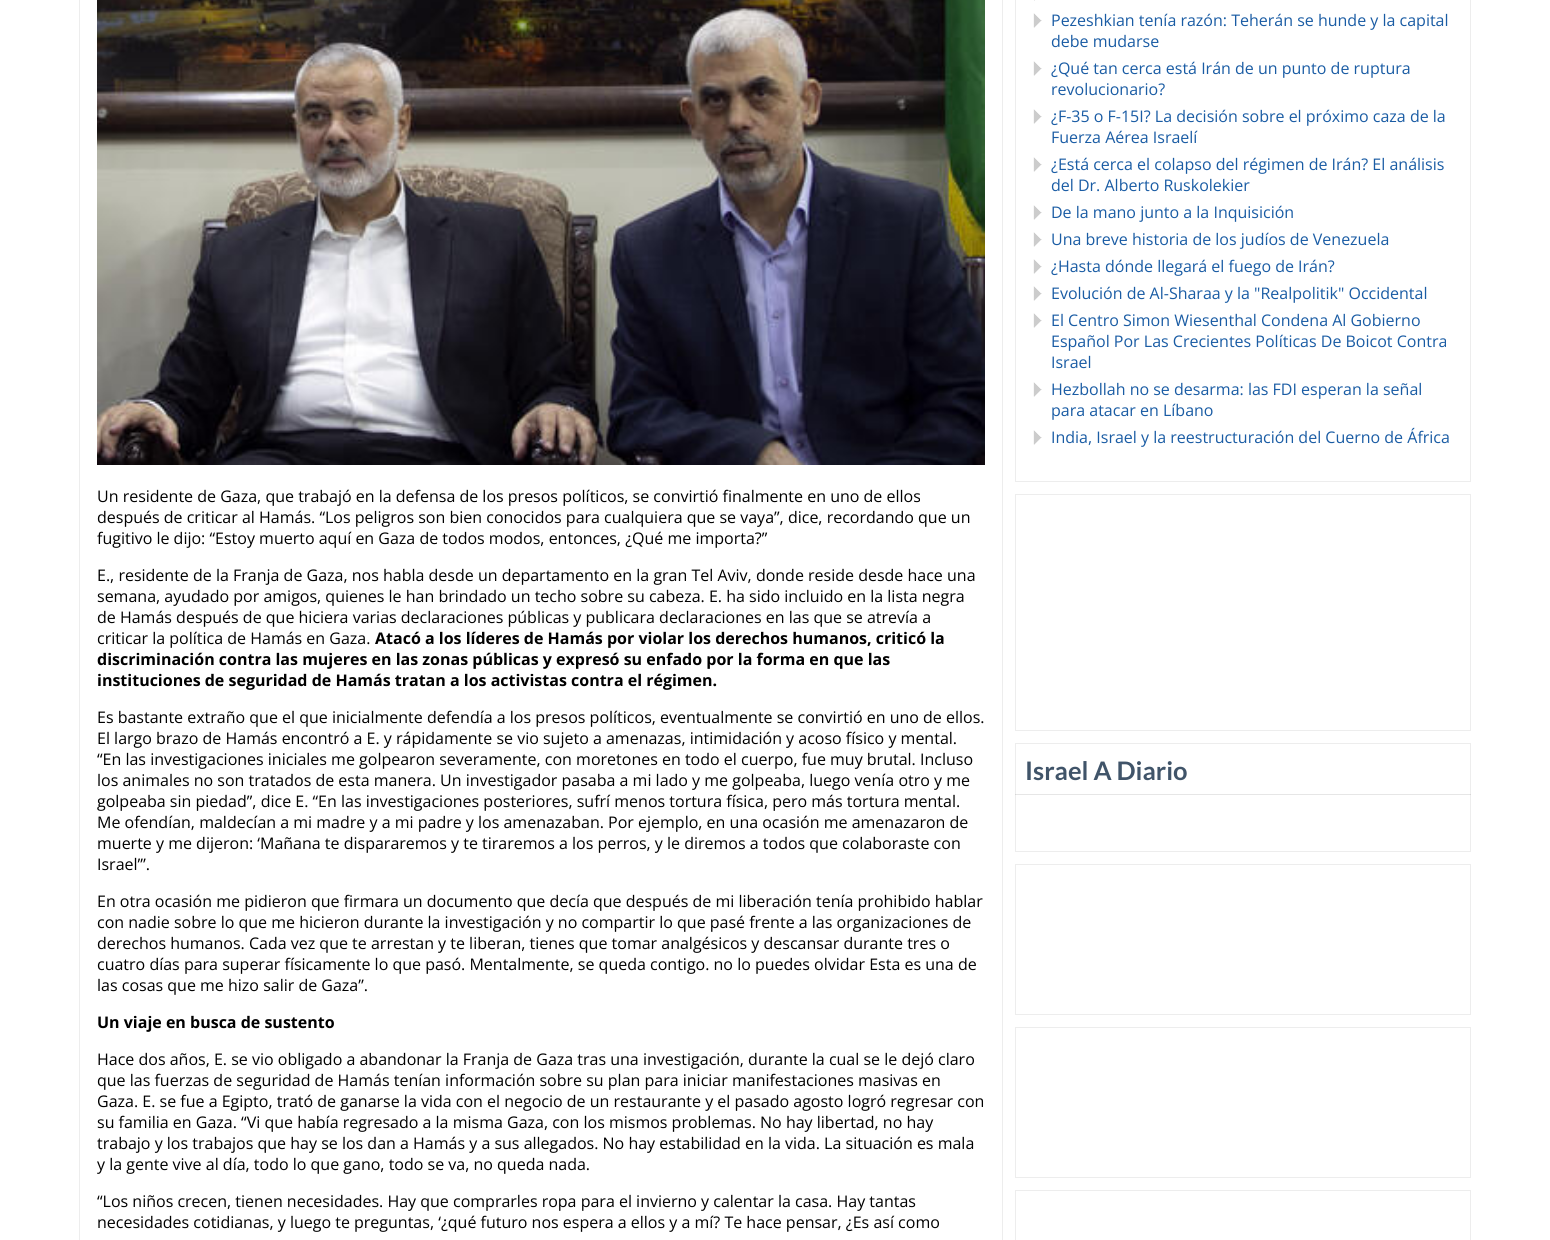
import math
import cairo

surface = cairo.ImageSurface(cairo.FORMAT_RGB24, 1550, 1240)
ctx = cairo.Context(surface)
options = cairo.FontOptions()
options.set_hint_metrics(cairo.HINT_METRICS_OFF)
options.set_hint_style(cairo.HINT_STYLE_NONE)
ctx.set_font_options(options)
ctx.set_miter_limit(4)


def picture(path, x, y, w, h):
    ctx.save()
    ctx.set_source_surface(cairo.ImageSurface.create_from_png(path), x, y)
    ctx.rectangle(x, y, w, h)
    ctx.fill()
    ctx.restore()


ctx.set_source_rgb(1, 1, 1)
ctx.paint()
ctx.rectangle(1015.5, -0.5, 455, 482)
ctx.set_source_rgb(0.929, 0.929, 0.929)
ctx.set_line_width(1)
ctx.stroke()
ctx.set_source_rgb(0.922, 0.922, 0.922)
ctx.rectangle(1034, 0, 1, 1)
ctx.fill()
picture("img1.png", 1033, 13, 9, 15)
ctx.select_font_face("Open Sans")
ctx.set_font_size(16)
ctx.set_source_rgb(0.102, 0.361, 0.643)
ctx.move_to(1051, 26)
ctx.show_text("Pezeshkian tenía razón: Teherán se hunde y la capital")
ctx.move_to(1051, 47)
ctx.show_text("debe mudarse")
picture("img1.png", 1033, 61, 9, 15)
ctx.move_to(1051, 74)
ctx.show_text("¿Qué tan cerca está Irán de un punto de ruptura")
ctx.move_to(1051, 95)
ctx.show_text("revolucionario?")
picture("img1.png", 1033, 109, 9, 15)
ctx.move_to(1051, 122)
ctx.show_text("¿F-35 o F-15I? La decisión sobre el próximo caza de la")
ctx.move_to(1051, 143)
ctx.show_text("Fuerza Aérea Israelí")
picture("img1.png", 1033, 157, 9, 15)
ctx.move_to(1051, 170)
ctx.show_text("¿Está cerca el colapso del régimen de Irán? El análisis")
ctx.move_to(1051, 191)
ctx.show_text("del Dr. Alberto Ruskolekier")
picture("img1.png", 1033, 205, 9, 15)
ctx.move_to(1051, 218)
ctx.show_text("De la mano junto a la Inquisición")
picture("img1.png", 1033, 232, 9, 15)
ctx.move_to(1051, 245)
ctx.show_text("Una breve historia de los judíos de Venezuela")
picture("img1.png", 1033, 259, 9, 15)
ctx.move_to(1051, 272)
ctx.show_text("¿Hasta dónde llegará el fuego de Irán?")
picture("img1.png", 1033, 286, 9, 15)
ctx.move_to(1051, 299)
ctx.show_text("Evolución de Al-Sharaa y la \"Realpolitik\" Occidental")
picture("img1.png", 1033, 313, 9, 15)
ctx.move_to(1051, 326)
ctx.show_text("El Centro Simon Wiesenthal Condena Al Gobierno")
ctx.move_to(1051, 347)
ctx.show_text("Español Por Las Crecientes Políticas De Boicot Contra")
ctx.move_to(1051, 368)
ctx.show_text("Israel")
picture("img1.png", 1033, 382, 9, 15)
ctx.move_to(1051, 395)
ctx.show_text("Hezbollah no se desarma: las FDI esperan la señal")
ctx.move_to(1051, 416)
ctx.show_text("para atacar en Líbano")
picture("img1.png", 1033, 430, 9, 15)
ctx.move_to(1051, 443)
ctx.show_text("India, Israel y la reestructuración del Cuerno de África")
ctx.rectangle(1015.5, 494.5, 455, 236)
ctx.set_source_rgb(0.929, 0.929, 0.929)
ctx.stroke()
ctx.rectangle(1015.5, 743.5, 455, 108)
ctx.stroke()
ctx.set_source_rgba(0, 0, 0, 0.1)
ctx.rectangle(1015, 794, 456, 1)
ctx.fill()
ctx.select_font_face("Lato", cairo.FONT_SLANT_NORMAL, cairo.FONT_WEIGHT_BOLD)
ctx.set_font_size(25.5)
ctx.set_source_rgb(0.251, 0.329, 0.412)
ctx.move_to(1025, 780)
ctx.show_text("Israel A Diario")
ctx.rectangle(1015.5, 864.5, 455, 150)
ctx.set_source_rgb(0.929, 0.929, 0.929)
ctx.stroke()
ctx.rectangle(1015.5, 1027.5, 455, 150)
ctx.stroke()
ctx.rectangle(1015.5, 1190.5, 455, 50)
ctx.stroke()
ctx.rectangle(79.5, -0.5, 923, 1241)
ctx.stroke()
picture("img2.png", 97, 0, 888, 465)
ctx.select_font_face("Open Sans")
ctx.set_font_size(16)
ctx.set_source_rgb(0, 0, 0)
ctx.move_to(97, 502)
ctx.show_text("Un residente de Gaza, que trabajó en la defensa de los presos políticos, se convirtió finalmente en uno de ellos")
ctx.move_to(97, 523)
ctx.show_text("después de criticar al Hamás. “Los peligros son bien conocidos para cualquiera que se vaya”, dice, recordando que un")
ctx.move_to(97, 544)
ctx.show_text("fugitivo le dijo: “Estoy muerto aquí en Gaza de todos modos, entonces, ¿Qué me importa?”")
ctx.move_to(97, 581)
ctx.show_text("E., residente de la Franja de Gaza, nos habla desde un departamento en la gran Tel Aviv, donde reside desde hace una")
ctx.move_to(97, 602)
ctx.show_text("semana, ayudado por amigos, quienes le han brindado un techo sobre su cabeza. E. ha sido incluido en la lista negra")
ctx.move_to(97, 623)
ctx.show_text("de Hamás después de que hiciera varias declaraciones públicas y publicara declaraciones en las que se atrevía a")
ctx.move_to(97, 644)
ctx.show_text("criticar la política de Hamás en Gaza.")
ctx.select_font_face("Open Sans", cairo.FONT_SLANT_NORMAL, cairo.FONT_WEIGHT_BOLD)
ctx.move_to(375, 644)
ctx.show_text("Atacó a los líderes de Hamás por violar los derechos humanos, criticó la")
ctx.move_to(97, 665)
ctx.show_text("discriminación contra las mujeres en las zonas públicas y expresó su enfado por la forma en que las")
ctx.move_to(97, 686)
ctx.show_text("instituciones de seguridad de Hamás tratan a los activistas contra el régimen.")
ctx.select_font_face("Open Sans")
ctx.move_to(97, 723)
ctx.show_text("Es bastante extraño que el que inicialmente defendía a los presos políticos, eventualmente se convirtió en uno de ellos.")
ctx.move_to(97, 744)
ctx.show_text("El largo brazo de Hamás encontró a E. y rápidamente se vio sujeto a amenazas, intimidación y acoso físico y mental.")
ctx.move_to(97, 765)
ctx.show_text("“En las investigaciones iniciales me golpearon severamente, con moretones en todo el cuerpo, fue muy brutal. Incluso")
ctx.move_to(97, 786)
ctx.show_text("los animales no son tratados de esta manera. Un investigador pasaba a mi lado y me golpeaba, luego venía otro y me")
ctx.move_to(97, 807)
ctx.show_text("golpeaba sin piedad”, dice E. “En las investigaciones posteriores, sufrí menos tortura física, pero más tortura mental.")
ctx.move_to(97, 828)
ctx.show_text("Me ofendían, maldecían a mi madre y a mi padre y los amenazaban. Por ejemplo, en una ocasión me amenazaron de")
ctx.move_to(97, 849)
ctx.show_text("muerte y me dijeron: ‘Mañana te dispararemos y te tiraremos a los perros, y le diremos a todos que colaboraste con")
ctx.move_to(97, 870)
ctx.show_text("Israel’”.")
ctx.move_to(97, 907)
ctx.show_text("En otra ocasión me pidieron que firmara un documento que decía que después de mi liberación tenía prohibido hablar")
ctx.move_to(97, 928)
ctx.show_text("con nadie sobre lo que me hicieron durante la investigación y no compartir lo que pasé frente a las organizaciones de")
ctx.move_to(97, 949)
ctx.show_text("derechos humanos. Cada vez que te arrestan y te liberan, tienes que tomar analgésicos y descansar durante tres o")
ctx.move_to(97, 970)
ctx.show_text("cuatro días para superar físicamente lo que pasó. Mentalmente, se queda contigo. no lo puedes olvidar Esta es una de")
ctx.move_to(97, 991)
ctx.show_text("las cosas que me hizo salir de Gaza”.")
ctx.select_font_face("Open Sans", cairo.FONT_SLANT_NORMAL, cairo.FONT_WEIGHT_BOLD)
ctx.move_to(97, 1028)
ctx.show_text("Un viaje en busca de sustento")
ctx.select_font_face("Open Sans")
ctx.move_to(97, 1065)
ctx.show_text("Hace dos años, E. se vio obligado a abandonar la Franja de Gaza tras una investigación, durante la cual se le dejó claro")
ctx.move_to(97, 1086)
ctx.show_text("que las fuerzas de seguridad de Hamás tenían información sobre su plan para iniciar manifestaciones masivas en")
ctx.move_to(97, 1107)
ctx.show_text("Gaza. E. se fue a Egipto, trató de ganarse la vida con el negocio de un restaurante y el pasado agosto logró regresar con")
ctx.move_to(97, 1128)
ctx.show_text("su familia en Gaza. “Vi que había regresado a la misma Gaza, con los mismos problemas. No hay libertad, no hay")
ctx.move_to(97, 1149)
ctx.show_text("trabajo y los trabajos que hay se los dan a Hamás y a sus allegados. No hay estabilidad en la vida. La situación es mala")
ctx.move_to(97, 1170)
ctx.show_text("y la gente vive al día, todo lo que gano, todo se va, no queda nada.")
ctx.move_to(97, 1207)
ctx.show_text("“Los niños crecen, tienen necesidades. Hay que comprarles ropa para el invierno y calentar la casa. Hay tantas")
ctx.move_to(97, 1228)
ctx.show_text("necesidades cotidianas, y luego te preguntas, ‘¿qué futuro nos espera a ellos y a mí? Te hace pensar, ¿Es así como")
surface.write_to_png("page.png")
